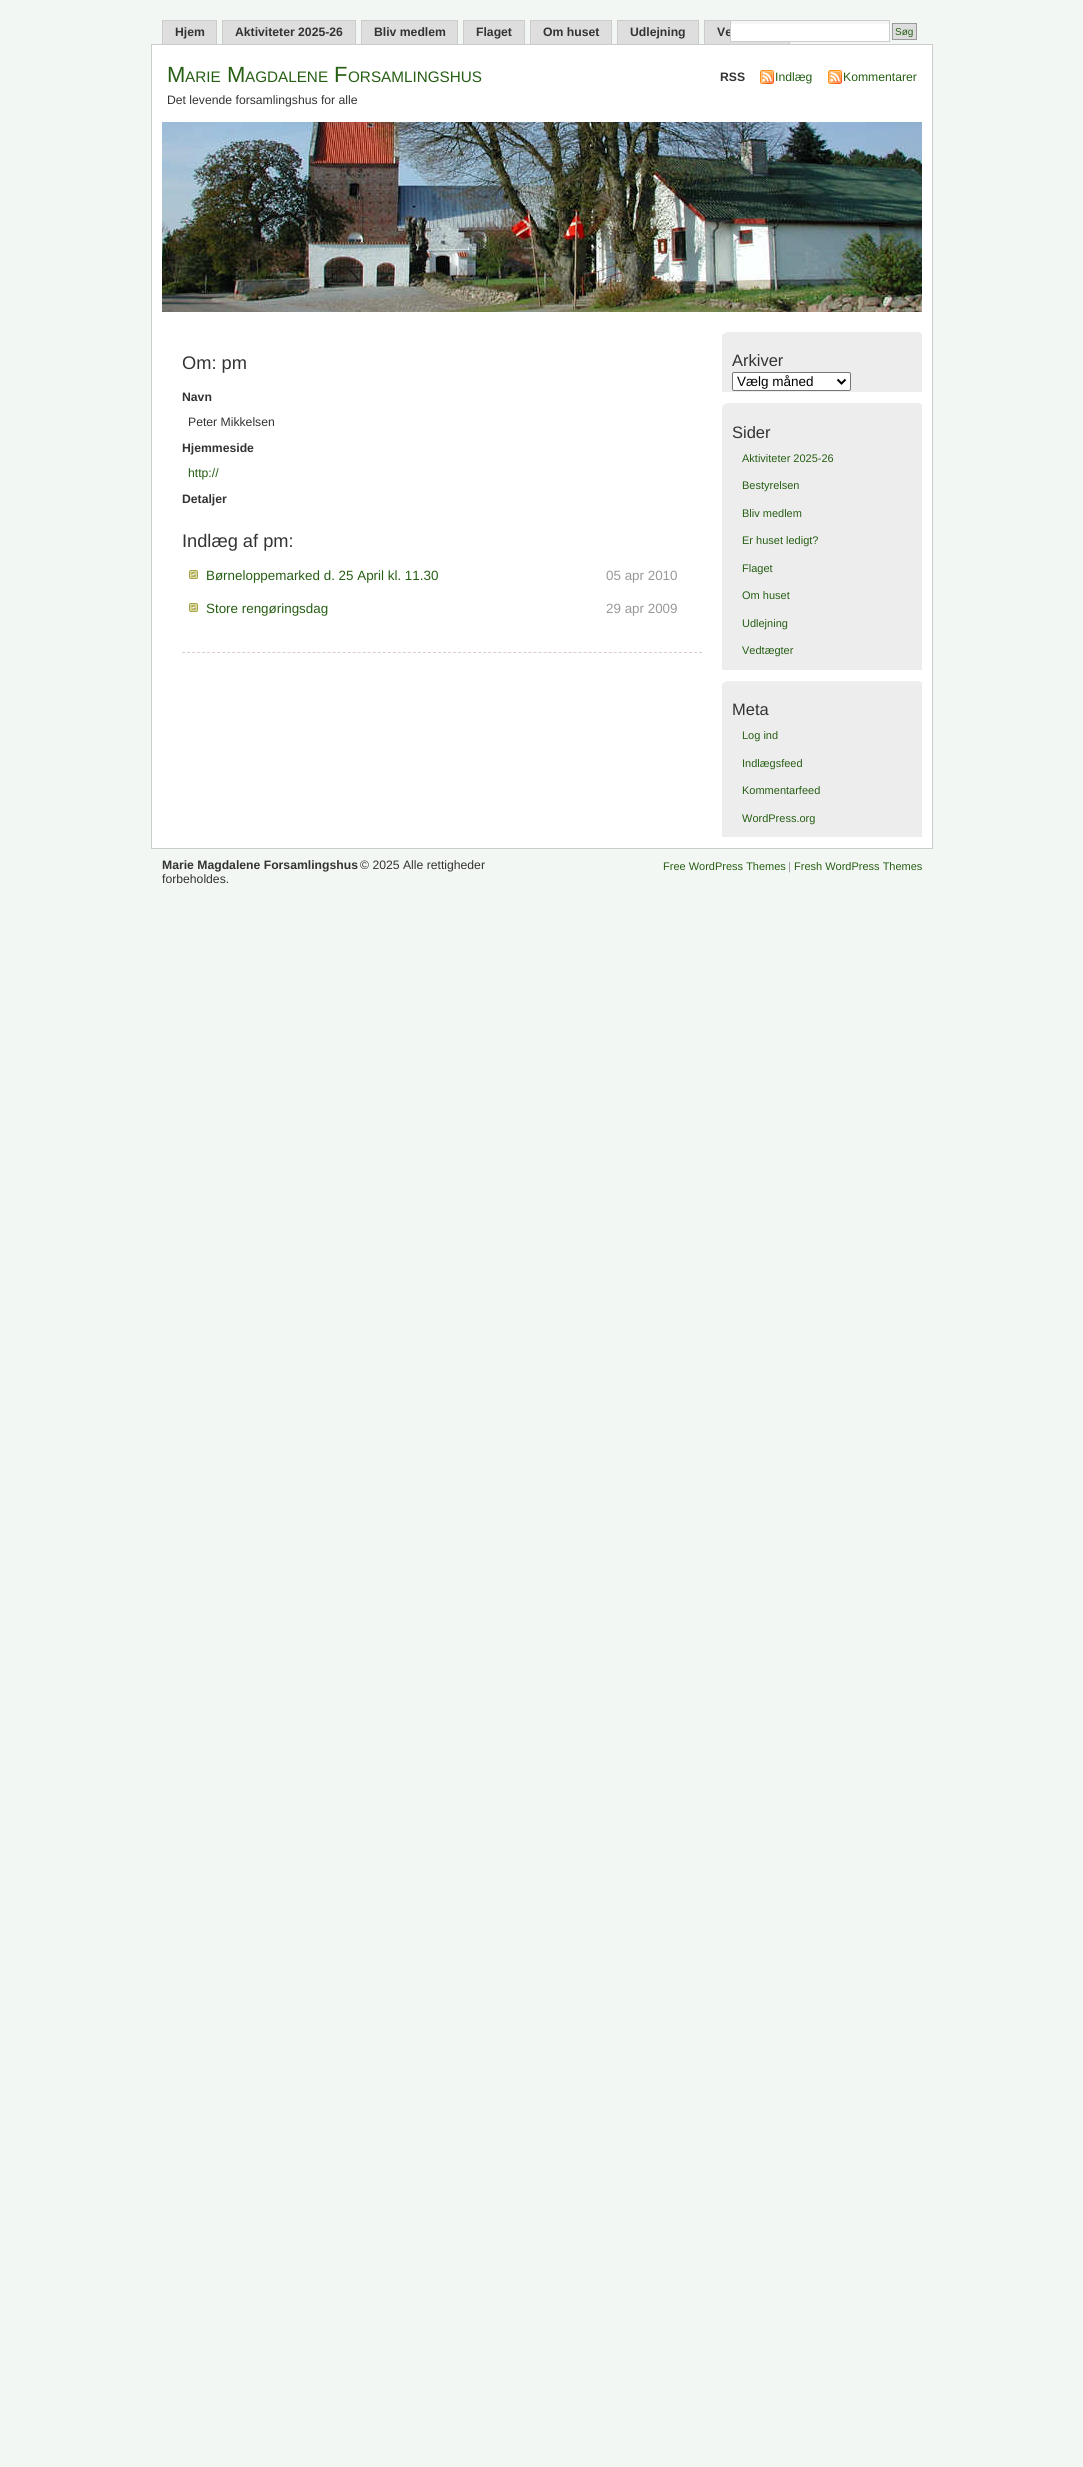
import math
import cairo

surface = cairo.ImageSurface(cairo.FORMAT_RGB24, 1083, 2467)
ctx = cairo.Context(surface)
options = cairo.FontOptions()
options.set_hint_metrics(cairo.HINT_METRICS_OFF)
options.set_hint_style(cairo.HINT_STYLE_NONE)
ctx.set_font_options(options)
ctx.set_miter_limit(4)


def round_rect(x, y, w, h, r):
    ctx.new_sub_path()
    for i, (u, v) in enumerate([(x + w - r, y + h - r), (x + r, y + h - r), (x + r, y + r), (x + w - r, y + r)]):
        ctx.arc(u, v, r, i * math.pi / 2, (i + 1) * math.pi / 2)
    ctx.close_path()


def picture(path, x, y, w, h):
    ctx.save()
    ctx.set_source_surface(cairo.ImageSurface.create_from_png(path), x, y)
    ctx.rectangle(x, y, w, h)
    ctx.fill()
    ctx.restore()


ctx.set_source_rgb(0.953, 0.965, 0.953)
ctx.paint()
ctx.set_source_rgb(0.871, 0.871, 0.871)
ctx.rectangle(163, 21, 53, 23)
ctx.fill()
ctx.set_source_rgb(0.8, 0.8, 0.8)
ctx.rectangle(162, 20, 55, 1)
ctx.fill()
ctx.rectangle(216, 20, 1, 24)
ctx.fill()
ctx.rectangle(162, 20, 1, 24)
ctx.fill()
ctx.select_font_face("Liberation Sans", cairo.FONT_SLANT_NORMAL, cairo.FONT_WEIGHT_BOLD)
ctx.set_font_size(12.2)
ctx.set_source_rgb(0.2, 0.2, 0.2)
ctx.move_to(175, 36)
ctx.show_text("Hjem")
ctx.set_source_rgb(0.871, 0.871, 0.871)
ctx.rectangle(223, 21, 132, 23)
ctx.fill()
ctx.set_source_rgb(0.8, 0.8, 0.8)
ctx.rectangle(222, 20, 134, 1)
ctx.fill()
ctx.rectangle(355, 20, 1, 24)
ctx.fill()
ctx.rectangle(222, 20, 1, 24)
ctx.fill()
ctx.set_source_rgb(0.2, 0.2, 0.2)
ctx.move_to(235, 36)
ctx.show_text("Aktiviteter 2025-26")
ctx.set_source_rgb(0.871, 0.871, 0.871)
ctx.rectangle(362, 21, 95, 23)
ctx.fill()
ctx.set_source_rgb(0.8, 0.8, 0.8)
ctx.rectangle(361, 20, 97, 1)
ctx.fill()
ctx.rectangle(457, 20, 1, 24)
ctx.fill()
ctx.rectangle(361, 20, 1, 24)
ctx.fill()
ctx.set_source_rgb(0.2, 0.2, 0.2)
ctx.move_to(374, 36)
ctx.show_text("Bliv medlem")
ctx.set_source_rgb(0.871, 0.871, 0.871)
ctx.rectangle(464, 21, 60, 23)
ctx.fill()
ctx.set_source_rgb(0.8, 0.8, 0.8)
ctx.rectangle(463, 20, 62, 1)
ctx.fill()
ctx.rectangle(524, 20, 1, 24)
ctx.fill()
ctx.rectangle(463, 20, 1, 24)
ctx.fill()
ctx.set_source_rgb(0.2, 0.2, 0.2)
ctx.move_to(476, 36)
ctx.show_text("Flaget")
ctx.set_source_rgb(0.871, 0.871, 0.871)
ctx.rectangle(531, 21, 80, 23)
ctx.fill()
ctx.set_source_rgb(0.8, 0.8, 0.8)
ctx.rectangle(530, 20, 82, 1)
ctx.fill()
ctx.rectangle(611, 20, 1, 24)
ctx.fill()
ctx.rectangle(530, 20, 1, 24)
ctx.fill()
ctx.set_source_rgb(0.2, 0.2, 0.2)
ctx.move_to(543, 36)
ctx.show_text("Om huset")
ctx.set_source_rgb(0.871, 0.871, 0.871)
ctx.rectangle(618, 21, 80, 23)
ctx.fill()
ctx.set_source_rgb(0.8, 0.8, 0.8)
ctx.rectangle(617, 20, 82, 1)
ctx.fill()
ctx.rectangle(698, 20, 1, 24)
ctx.fill()
ctx.rectangle(617, 20, 1, 24)
ctx.fill()
ctx.set_source_rgb(0.2, 0.2, 0.2)
ctx.move_to(630, 36)
ctx.show_text("Udlejning")
ctx.set_source_rgb(0.871, 0.871, 0.871)
ctx.rectangle(705, 21, 84, 23)
ctx.fill()
ctx.set_source_rgb(0.8, 0.8, 0.8)
ctx.rectangle(704, 20, 26, 1)
ctx.fill()
ctx.rectangle(789, 42, 1, 2)
ctx.fill()
ctx.rectangle(704, 20, 1, 24)
ctx.fill()
ctx.set_source_rgb(0.2, 0.2, 0.2)
ctx.move_to(717, 36)
ctx.show_text("Ve")
ctx.set_source_rgb(1, 1, 1)
ctx.rectangle(731, 24, 158, 17)
ctx.fill()
ctx.set_source_rgb(0.965, 0.961, 0.965)
ctx.rectangle(730, 21, 160, 3)
ctx.fill()
ctx.rectangle(730.5, 20.5, 159, 21)
ctx.set_source_rgb(0.8, 0.8, 0.8)
ctx.set_line_width(1)
ctx.stroke()
ctx.set_source_rgb(0.867, 0.867, 0.867)
ctx.rectangle(892.5, 23.5, 24, 16)
ctx.fill_preserve()
ctx.set_source_rgb(0.6, 0.6, 0.6)
ctx.stroke()
ctx.select_font_face("Liberation Sans")
ctx.set_font_size(10)
ctx.set_source_rgb(0.149, 0.369, 0.082)
ctx.move_to(895, 35)
ctx.show_text("Søg")
ctx.set_source_rgb(1, 1, 1)
ctx.rectangle(151.5, 44.5, 781, 804)
ctx.fill_preserve()
ctx.set_source_rgb(0.8, 0.8, 0.8)
ctx.stroke()
ctx.set_font_size(22)
ctx.set_source_rgb(0.149, 0.369, 0.082)
ctx.move_to(167, 82)
ctx.show_text("M")
ctx.set_font_size(15.25)
ctx.move_to(185, 82)
ctx.show_text("ARIE")
ctx.set_font_size(22)
ctx.move_to(227, 82)
ctx.show_text("M")
ctx.set_font_size(15.25)
ctx.move_to(245, 82)
ctx.show_text("AGDALENE")
ctx.set_font_size(22)
ctx.move_to(334, 82)
ctx.show_text("F")
ctx.set_font_size(15.25)
ctx.move_to(348, 82)
ctx.show_text("ORSAMLINGSHUS")
ctx.set_font_size(12.2)
ctx.set_source_rgb(0.2, 0.2, 0.2)
ctx.move_to(167, 104)
ctx.show_text("Det levende forsamlingshus for alle")
ctx.select_font_face("Liberation Sans", cairo.FONT_SLANT_NORMAL, cairo.FONT_WEIGHT_BOLD)
ctx.move_to(720, 81)
ctx.show_text("RSS")
picture("img1.png", 760, 70, 14, 14)
ctx.select_font_face("Liberation Sans")
ctx.set_source_rgb(0.149, 0.369, 0.082)
ctx.move_to(775, 81)
ctx.show_text("Indlæg")
picture("img1.png", 828, 70, 14, 14)
ctx.move_to(843, 81)
ctx.show_text("Kommentarer")
picture("img2.png", 162, 122, 760, 190)
ctx.new_path()
ctx.move_to(182, 652.5)
ctx.line_to(702, 652.5)
ctx.set_source_rgb(0.867, 0.8, 0.8)
ctx.set_dash([3, 2.02])
ctx.stroke()
ctx.set_font_size(18.25)
ctx.set_source_rgb(0.2, 0.2, 0.2)
ctx.move_to(182, 369)
ctx.show_text("Om: pm")
ctx.select_font_face("Liberation Sans", cairo.FONT_SLANT_NORMAL, cairo.FONT_WEIGHT_BOLD)
ctx.set_font_size(12.2)
ctx.move_to(182, 401)
ctx.show_text("Navn")
ctx.select_font_face("Liberation Sans")
ctx.move_to(188, 426)
ctx.show_text("Peter Mikkelsen")
ctx.select_font_face("Liberation Sans", cairo.FONT_SLANT_NORMAL, cairo.FONT_WEIGHT_BOLD)
ctx.move_to(182, 452)
ctx.show_text("Hjemmeside")
ctx.select_font_face("Liberation Sans")
ctx.set_source_rgb(0.149, 0.369, 0.082)
ctx.move_to(188, 477)
ctx.show_text("http://")
ctx.select_font_face("Liberation Sans", cairo.FONT_SLANT_NORMAL, cairo.FONT_WEIGHT_BOLD)
ctx.set_source_rgb(0.2, 0.2, 0.2)
ctx.move_to(182, 503)
ctx.show_text("Detaljer")
ctx.select_font_face("Liberation Sans")
ctx.set_font_size(18.25)
ctx.move_to(182, 547)
ctx.show_text("Indlæg af pm:")
picture("img3.png", 189, 570, 9, 9)
ctx.set_font_size(13.4)
ctx.set_source_rgb(0.149, 0.369, 0.082)
ctx.move_to(206, 580)
ctx.show_text("Børneloppemarked d. 25 April kl. 11.30")
ctx.set_source_rgb(0.6, 0.6, 0.6)
ctx.move_to(606, 580)
ctx.show_text("05 apr 2010")
picture("img3.png", 189, 603, 9, 9)
ctx.set_source_rgb(0.149, 0.369, 0.082)
ctx.move_to(206, 613)
ctx.show_text("Store rengøringsdag")
ctx.set_source_rgb(0.6, 0.6, 0.6)
ctx.move_to(606, 613)
ctx.show_text("29 apr 2009")
ctx.set_source_rgb(0.929, 0.929, 0.929)
ctx.rectangle(722, 335, 200, 57)
ctx.fill()
picture("img4.png", 722, 332, 200, 3)
ctx.set_font_size(16.5)
ctx.set_source_rgb(0.2, 0.2, 0.2)
ctx.move_to(732, 366)
ctx.show_text("Arkiver")
ctx.set_source_rgb(1, 1, 1)
round_rect(732.5, 372.5, 118, 18, 1.5)
ctx.fill_preserve()
ctx.set_source_rgb(0.463, 0.463, 0.463)
ctx.set_dash([])
ctx.stroke()
ctx.new_path()
ctx.move_to(837.5, 379.5)
ctx.line_to(841.5, 383.5)
ctx.line_to(845.5, 379.5)
ctx.set_source_rgb(0, 0, 0)
ctx.set_line_width(2)
ctx.stroke()
ctx.set_font_size(13.5)
ctx.move_to(737, 386)
ctx.show_text("Vælg måned")
ctx.set_source_rgb(0.929, 0.929, 0.929)
ctx.rectangle(722, 406, 200, 264)
ctx.fill()
picture("img4.png", 722, 403, 200, 3)
ctx.set_font_size(16.5)
ctx.set_source_rgb(0.2, 0.2, 0.2)
ctx.move_to(732, 438)
ctx.show_text("Sider")
ctx.set_font_size(11)
ctx.set_source_rgb(0.149, 0.369, 0.082)
ctx.move_to(742, 462)
ctx.show_text("Aktiviteter 2025-26")
ctx.move_to(742, 489)
ctx.show_text("Bestyrelsen")
ctx.move_to(742, 517)
ctx.show_text("Bliv medlem")
ctx.move_to(742, 544)
ctx.show_text("Er huset ledigt?")
ctx.move_to(742, 572)
ctx.show_text("Flaget")
ctx.move_to(742, 599)
ctx.show_text("Om huset")
ctx.move_to(742, 627)
ctx.show_text("Udlejning")
ctx.move_to(742, 654)
ctx.show_text("Vedtægter")
ctx.set_source_rgb(0.929, 0.929, 0.929)
ctx.rectangle(722, 684, 200, 153)
ctx.fill()
picture("img4.png", 722, 681, 200, 3)
ctx.set_font_size(16.5)
ctx.set_source_rgb(0.2, 0.2, 0.2)
ctx.move_to(732, 715)
ctx.show_text("Meta")
ctx.set_font_size(11)
ctx.set_source_rgb(0.149, 0.369, 0.082)
ctx.move_to(742, 739)
ctx.show_text("Log ind")
ctx.move_to(742, 767)
ctx.show_text("Indlægsfeed")
ctx.move_to(742, 794)
ctx.show_text("Kommentarfeed")
ctx.move_to(742, 822)
ctx.show_text("WordPress.org")
ctx.select_font_face("Liberation Sans", cairo.FONT_SLANT_NORMAL, cairo.FONT_WEIGHT_BOLD)
ctx.set_font_size(12.2)
ctx.set_source_rgb(0.2, 0.2, 0.2)
ctx.move_to(162, 869)
ctx.show_text("Marie Magdalene Forsamlingshus")
ctx.select_font_face("Liberation Sans")
ctx.move_to(360, 869)
ctx.show_text("© 2025 Alle rettigheder")
ctx.move_to(162, 883)
ctx.show_text("forbeholdes.")
ctx.set_font_size(11)
ctx.set_source_rgb(0.149, 0.369, 0.082)
ctx.move_to(663, 870)
ctx.show_text("Free WordPress Themes")
ctx.set_source_rgb(0.6, 0.6, 0.6)
ctx.move_to(788, 870)
ctx.show_text("|")
ctx.set_source_rgb(0.149, 0.369, 0.082)
ctx.move_to(794, 870)
ctx.show_text("Fresh WordPress Themes")
surface.write_to_png("page.png")
